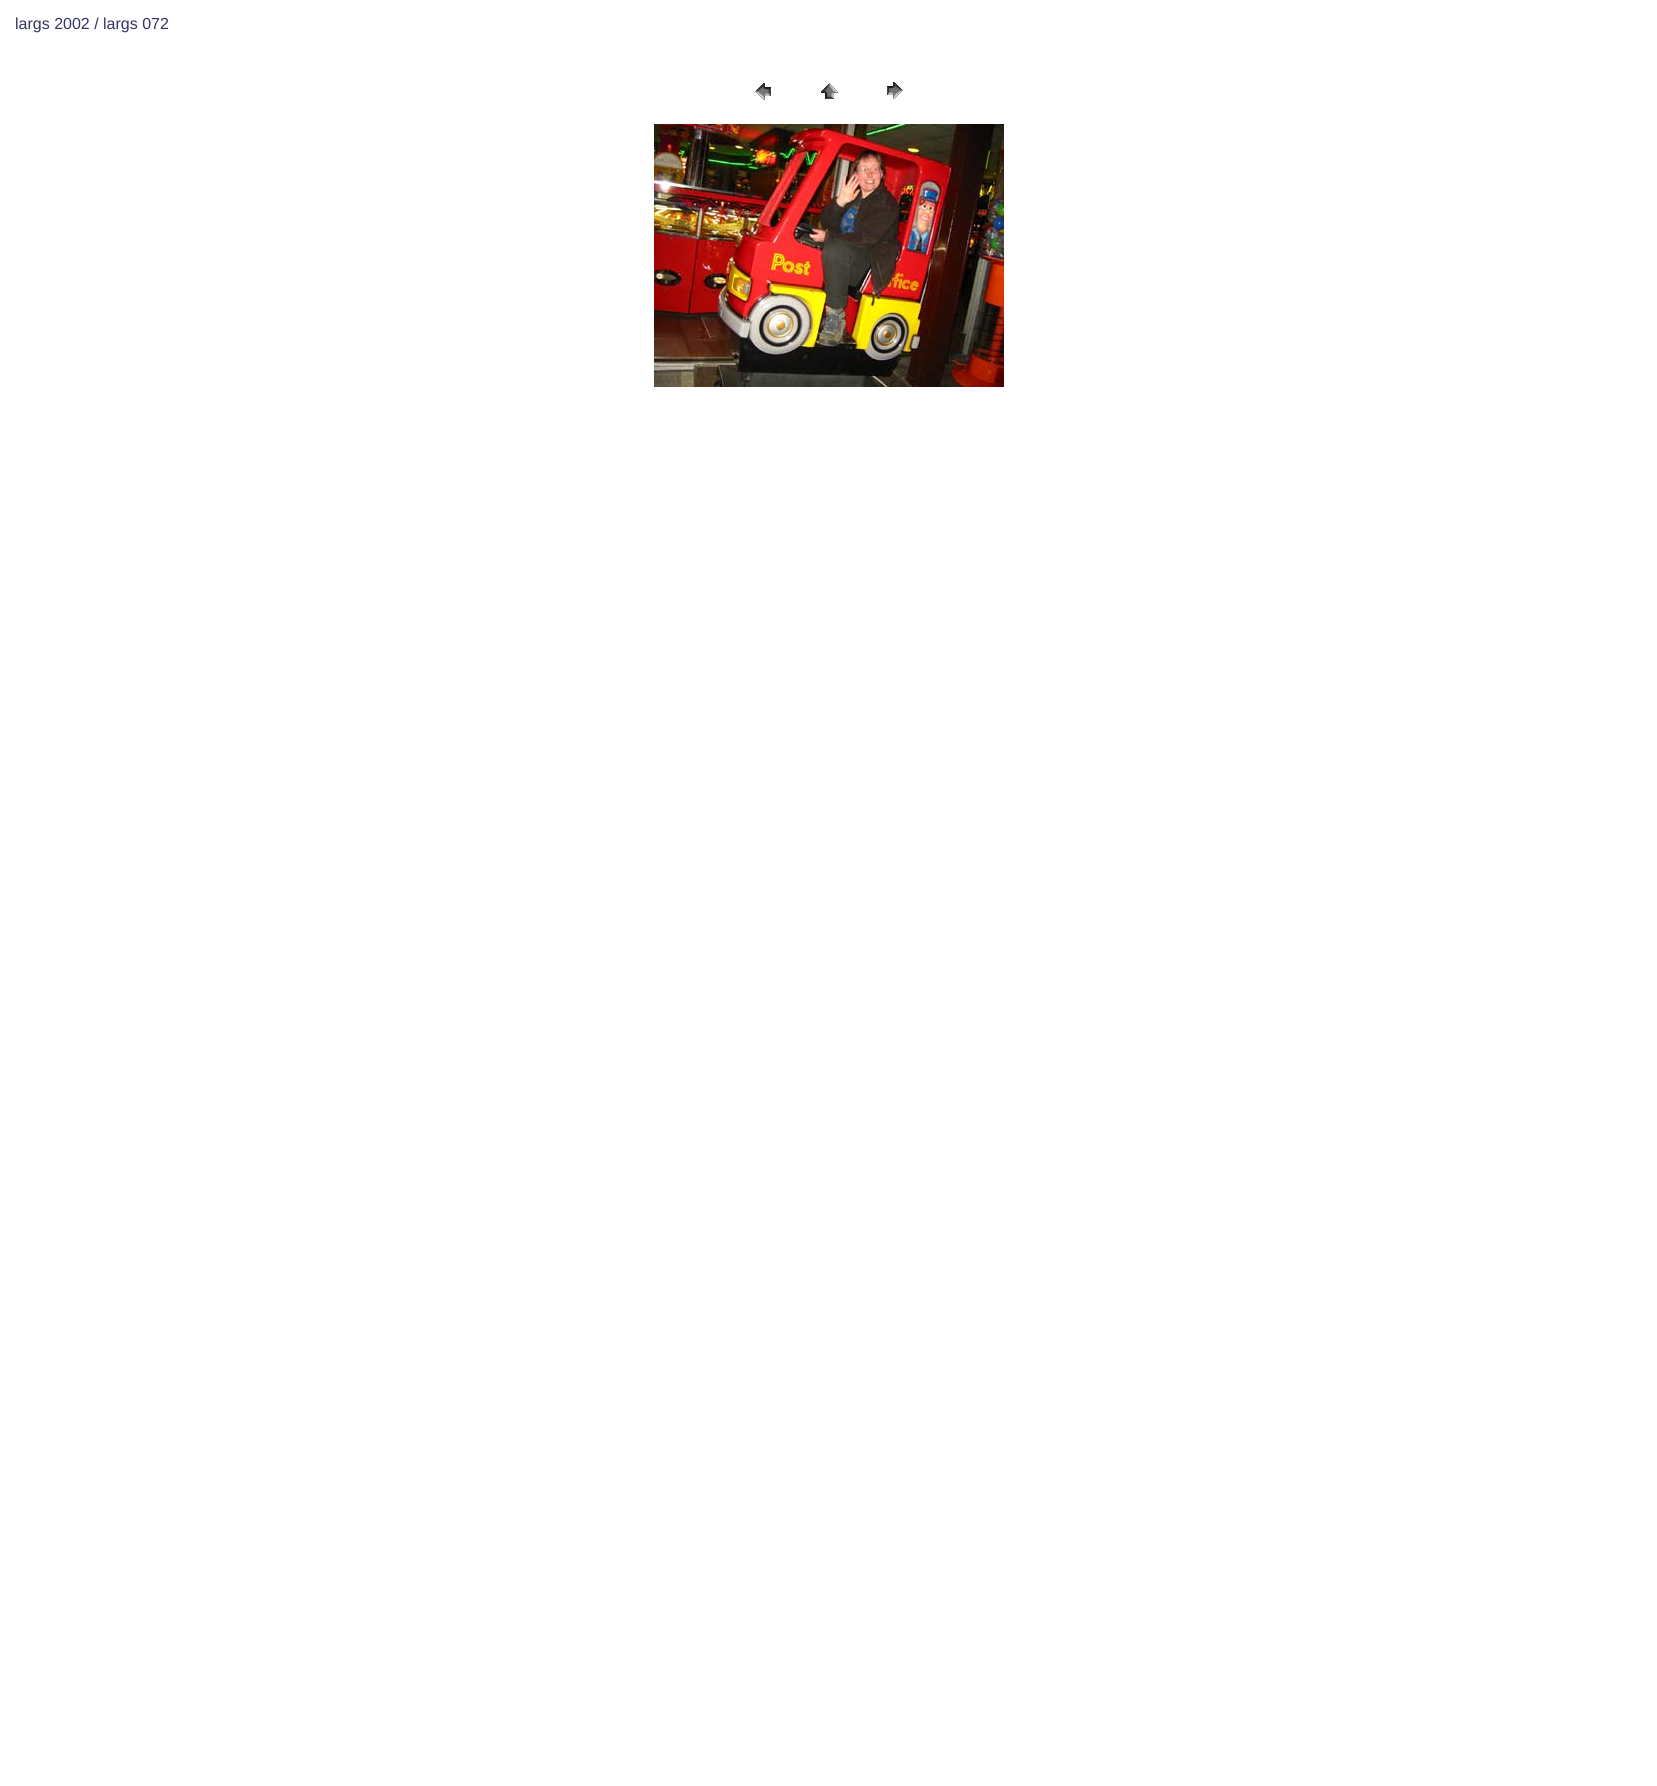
import math
import cairo

surface = cairo.ImageSurface(cairo.FORMAT_RGB24, 1657, 1786)
ctx = cairo.Context(surface)
options = cairo.FontOptions()
options.set_hint_metrics(cairo.HINT_METRICS_OFF)
options.set_hint_style(cairo.HINT_STYLE_NONE)
ctx.set_font_options(options)
ctx.set_miter_limit(4)


def picture(path, x, y, w, h):
    ctx.save()
    ctx.set_source_surface(cairo.ImageSurface.create_from_png(path), x, y)
    ctx.rectangle(x, y, w, h)
    ctx.fill()
    ctx.restore()


ctx.set_source_rgb(1, 1, 1)
ctx.paint()
ctx.select_font_face("Liberation Sans")
ctx.set_font_size(16)
ctx.set_source_rgb(0.2, 0.2, 0.4)
ctx.move_to(15, 29)
ctx.show_text("largs 2002 / largs 072")
picture("img1.png", 755, 83, 16, 17)
picture("img2.png", 821, 83, 17, 16)
picture("img3.png", 887, 82, 16, 17)
picture("img4.png", 654, 124, 350, 263)
surface.write_to_png("page.png")
